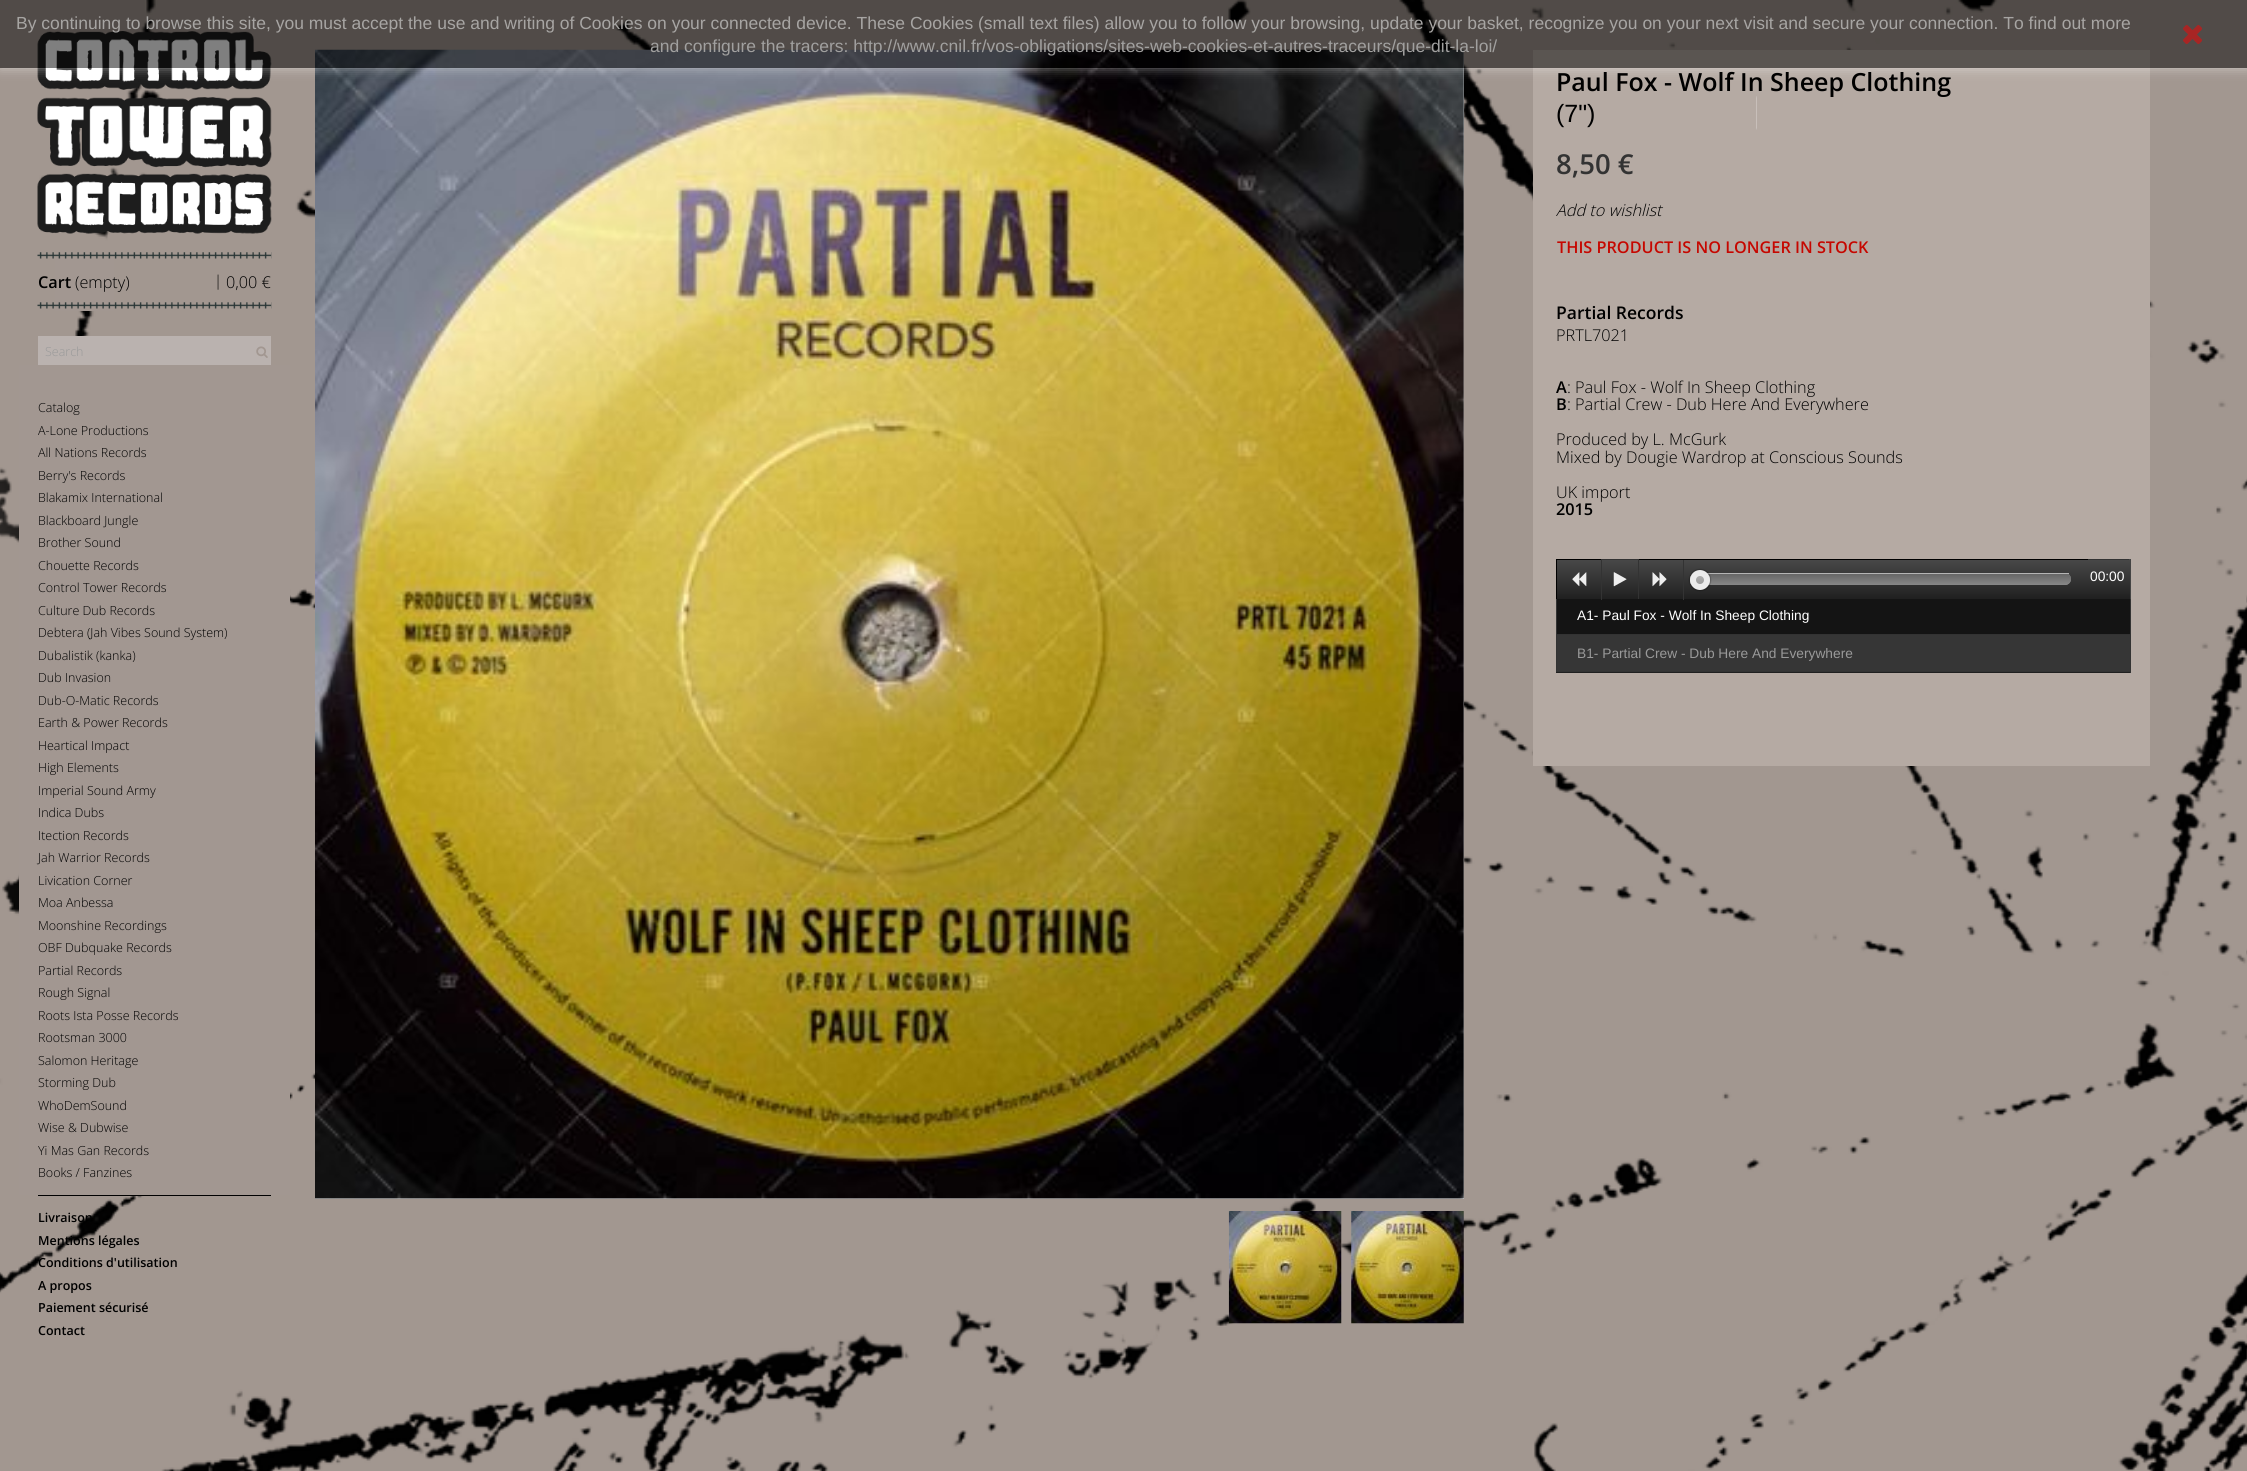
import math
import cairo

surface = cairo.ImageSurface(cairo.FORMAT_RGB24, 2247, 1471)
ctx = cairo.Context(surface)
options = cairo.FontOptions()
options.set_hint_metrics(cairo.HINT_METRICS_OFF)
options.set_hint_style(cairo.HINT_STYLE_NONE)
ctx.set_font_options(options)
ctx.set_miter_limit(4)


def round_rect(x, y, w, h, r):
    ctx.new_sub_path()
    for i, (u, v) in enumerate([(x + w - r, y + h - r), (x + r, y + h - r), (x + r, y + r), (x + w - r, y + r)]):
        ctx.arc(u, v, r, i * math.pi / 2, (i + 1) * math.pi / 2)
    ctx.close_path()


def shadow(x, y, w, h, r, blur, alpha):
    ctx.push_group_with_content(cairo.CONTENT_ALPHA)
    ctx.set_operator(cairo.OPERATOR_SOURCE)
    for i in range(15, -16, -2):
        e = blur * i / 6
        if min(w, h) + 2 * e > 0:
            ctx.set_source_rgba(0, 0, 0, alpha * math.erfc((i - 1) / 8.5) / 2)
            round_rect(x - e, y - e, w + 2 * e, h + 2 * e, max(0, min(r + e + blur * .6, min(w, h) / 2 + e)))
            ctx.fill()
    ctx.mask(ctx.pop_group())


def picture(path, x, y, w, h):
    ctx.save()
    ctx.set_source_surface(cairo.ImageSurface.create_from_png(path), x, y)
    ctx.rectangle(x, y, w, h)
    ctx.fill()
    ctx.restore()


ctx.set_source_rgb(1, 1, 1)
ctx.paint()
picture("img1.png", 0, 0, 2247, 1471)
picture("img3.png", 37, 31, 235, 203)
ctx.set_source_rgb(0.984, 0.984, 0.984)
ctx.rectangle(315, 50, 1149, 1149)
ctx.fill()
picture("img6.png", 315, 49, 1149, 1150)
ctx.set_source_rgb(0.71, 0.667, 0.639)
ctx.rectangle(1533, 50, 617, 716)
ctx.fill()
ctx.save()
ctx.set_fill_rule(cairo.FILL_RULE_EVEN_ODD)
ctx.new_path()
ctx.move_to(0, 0)
ctx.line_to(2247, 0)
ctx.line_to(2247, 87)
ctx.line_to(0, 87)
ctx.close_path()
ctx.move_to(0, 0)
ctx.line_to(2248, 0)
ctx.line_to(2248, 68)
ctx.line_to(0, 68)
ctx.close_path()
ctx.clip()
ctx.set_source_rgb(1, 1, 1)
shadow(0, 0, 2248, 68, 0, 6, 0.5)
ctx.restore()
ctx.set_source_rgba(0, 0, 0, 0.5)
ctx.rectangle(0, 0, 2247, 68)
ctx.fill()
ctx.select_font_face("Liberation Sans")
ctx.set_font_size(17.5)
ctx.set_source_rgb(0.655, 0.647, 0.639)
ctx.move_to(16, 29)
ctx.show_text("By continuing to browse this site, you must accept the use and writing of Cookies on your connected device. These Cookies (small text files) allow you to follow your browsing, update your basket, recognize you on your next visit and secure your connection. To find out more")
ctx.set_source_rgb(0.631, 0.627, 0.624)
ctx.move_to(650, 52)
ctx.show_text("and configure the tracers: http://www.cnil.fr/vos-obligations/sites-web-cookies-et-autres-traceurs/que-dit-la-loi/")
picture("img2.png", 2183, 25, 19, 19)
ctx.set_source_rgb(0.635, 0.592, 0.569)
ctx.rectangle(55, 258, 59, 53)
ctx.fill()
picture("img4.png", 37, 252, 235, 57)
ctx.select_font_face("Open Sans SemiBold")
ctx.set_font_size(16.25)
ctx.set_source_rgb(0, 0, 0)
ctx.move_to(38, 288)
ctx.show_text("Cart")
ctx.select_font_face("Open Sans Light")
ctx.move_to(75, 288)
ctx.show_text("(empty)")
ctx.set_font_size(15)
ctx.move_to(214, 286)
ctx.show_text("|")
ctx.set_font_size(16.25)
ctx.move_to(226, 288)
ctx.show_text("0,00 €")
ctx.set_source_rgb(0.729, 0.698, 0.686)
ctx.rectangle(38, 336, 233, 29)
ctx.fill()
ctx.set_font_size(12.5)
ctx.set_source_rgb(0.6, 0.6, 0.6)
ctx.move_to(45, 356)
ctx.show_text("Search")
picture("img5.png", 256, 346, 12, 12)
ctx.set_source_rgb(0.635, 0.592, 0.569)
ctx.rectangle(19, 365, 271, 830)
ctx.fill()
ctx.set_source_rgb(0, 0, 0)
ctx.move_to(38, 412)
ctx.show_text("Catalog")
ctx.move_to(38, 435)
ctx.show_text("A-Lone Productions")
ctx.move_to(38, 457)
ctx.show_text("All Nations Records")
ctx.move_to(38, 480)
ctx.show_text("Berry's Records")
ctx.move_to(38, 502)
ctx.show_text("Blakamix International")
ctx.move_to(38, 525)
ctx.show_text("Blackboard Jungle")
ctx.move_to(38, 547)
ctx.show_text("Brother Sound")
ctx.move_to(38, 570)
ctx.show_text("Chouette Records")
ctx.move_to(38, 592)
ctx.show_text("Control Tower Records")
ctx.move_to(38, 615)
ctx.show_text("Culture Dub Records")
ctx.move_to(38, 637)
ctx.show_text("Debtera (Jah Vibes Sound System)")
ctx.move_to(38, 660)
ctx.show_text("Dubalistik (kanka)")
ctx.move_to(38, 682)
ctx.show_text("Dub Invasion")
ctx.move_to(38, 705)
ctx.show_text("Dub-O-Matic Records")
ctx.move_to(38, 727)
ctx.show_text("Earth & Power Records")
ctx.move_to(38, 750)
ctx.show_text("Heartical Impact")
ctx.move_to(38, 772)
ctx.show_text("High Elements")
ctx.move_to(38, 795)
ctx.show_text("Imperial Sound Army")
ctx.move_to(38, 817)
ctx.show_text("Indica Dubs")
ctx.move_to(38, 840)
ctx.show_text("Itection Records")
ctx.move_to(38, 862)
ctx.show_text("Jah Warrior Records")
ctx.move_to(38, 885)
ctx.show_text("Livication Corner")
ctx.move_to(38, 907)
ctx.show_text("Moa Anbessa")
ctx.move_to(38, 930)
ctx.show_text("Moonshine Recordings")
ctx.move_to(38, 952)
ctx.show_text("OBF Dubquake Records")
ctx.move_to(38, 975)
ctx.show_text("Partial Records")
ctx.move_to(38, 997)
ctx.show_text("Rough Signal")
ctx.move_to(38, 1020)
ctx.show_text("Roots Ista Posse Records")
ctx.move_to(38, 1042)
ctx.show_text("Rootsman 3000")
ctx.move_to(38, 1065)
ctx.show_text("Salomon Heritage")
ctx.move_to(38, 1087)
ctx.show_text("Storming Dub")
ctx.move_to(38, 1110)
ctx.show_text("WhoDemSound")
ctx.move_to(38, 1132)
ctx.show_text("Wise & Dubwise")
ctx.move_to(38, 1155)
ctx.show_text("Yi Mas Gan Records")
ctx.move_to(38, 1177)
ctx.show_text("Books / Fanzines")
ctx.rectangle(38, 1195, 233, 1)
ctx.fill()
ctx.select_font_face("Open Sans SemiBold")
ctx.move_to(38, 1222)
ctx.show_text("Livraison")
ctx.move_to(38, 1245)
ctx.show_text("Mentions légales")
ctx.move_to(38, 1267)
ctx.show_text("Conditions d'utilisation")
ctx.move_to(38, 1290)
ctx.show_text("A propos")
ctx.move_to(38, 1312)
ctx.show_text("Paiement sécurisé")
ctx.move_to(38, 1335)
ctx.show_text("Contact")
picture("img7.png", 1228, 1211, 114, 113)
picture("img8.png", 1351, 1211, 113, 113)
ctx.set_font_size(25)
ctx.move_to(1556, 91)
ctx.show_text("Paul Fox - Wolf In Sheep Clothing")
ctx.select_font_face("Liberation Sans")
ctx.move_to(1556, 122)
ctx.show_text("(7\")")
picture("img9.png", 1756, 96, 1, 34)
ctx.select_font_face("Open Sans SemiBold")
ctx.set_font_size(27.5)
ctx.set_source_rgb(0.2, 0.2, 0.2)
ctx.move_to(1556, 174)
ctx.show_text("8,50 €")
ctx.select_font_face("Open Sans Light", cairo.FONT_SLANT_ITALIC)
ctx.set_font_size(16.25)
ctx.set_source_rgb(0, 0, 0)
ctx.move_to(1556, 216)
ctx.show_text("Add to wishlist")
ctx.select_font_face("Open Sans SemiBold")
ctx.set_source_rgb(0.776, 0.031, 0)
ctx.move_to(1557, 253)
ctx.show_text("THIS PRODUCT IS NO LONGER IN STOCK")
ctx.set_font_size(17.5)
ctx.set_source_rgb(0, 0, 0)
ctx.move_to(1556, 319)
ctx.show_text("Partial Records")
ctx.select_font_face("Open Sans Light")
ctx.set_font_size(16.25)
ctx.move_to(1556, 341)
ctx.show_text("PRTL7021")
ctx.select_font_face("Open Sans SemiBold")
ctx.move_to(1556, 393)
ctx.show_text("A")
ctx.select_font_face("Open Sans Light")
ctx.move_to(1567, 393)
ctx.show_text(": Paul Fox - Wolf In Sheep Clothing")
ctx.select_font_face("Open Sans SemiBold")
ctx.move_to(1556, 410)
ctx.show_text("B")
ctx.select_font_face("Open Sans Light")
ctx.move_to(1567, 410)
ctx.show_text(": Partial Crew - Dub Here And Everywhere")
ctx.move_to(1556, 445)
ctx.show_text("Produced by L. McGurk")
ctx.move_to(1556, 463)
ctx.show_text("Mixed by Dougie Wardrop at Conscious Sounds")
ctx.move_to(1556, 498)
ctx.show_text("UK import")
ctx.select_font_face("Open Sans SemiBold")
ctx.move_to(1556, 515)
ctx.show_text("2015")
gradient = cairo.LinearGradient(1843, 599, 1843, 559)
gradient.add_color_stop_rgba(0, 0.125, 0.125, 0.125, 1)
gradient.add_color_stop_rgba(1, 0.286, 0.286, 0.286, 1)
ctx.set_source(gradient)
ctx.rectangle(1557, 559, 573, 40)
ctx.fill()
ctx.set_source_rgb(0.2, 0.2, 0.2)
ctx.rectangle(2130, 596, 1, 77)
ctx.fill()
ctx.set_source_rgb(0.267, 0.267, 0.267)
ctx.rectangle(2130, 559, 1, 40)
ctx.fill()
ctx.set_source_rgb(0, 0, 0)
ctx.rectangle(1556, 559, 45, 1)
ctx.fill()
ctx.set_source_rgb(0.2, 0.2, 0.2)
ctx.rectangle(1556, 634, 574, 1)
ctx.fill()
ctx.rectangle(1556, 598, 1, 73)
ctx.fill()
ctx.set_source_rgb(0, 0, 0)
ctx.rectangle(1556, 559, 1, 40)
ctx.fill()
ctx.set_source_rgb(0.082, 0.082, 0.082)
ctx.rectangle(1557, 599, 573, 35)
ctx.fill()
ctx.set_source_rgb(0.2, 0.2, 0.2)
ctx.rectangle(1601, 560, 1, 40)
ctx.fill()
picture("img10.png", 1572, 572, 15, 15)
ctx.rectangle(1601, 559, 38, 1)
ctx.fill()
ctx.rectangle(1638, 559, 1, 40)
ctx.fill()
picture("img11.png", 1613, 572, 14, 15)
ctx.set_source_rgb(0, 0, 0)
ctx.rectangle(1639, 559, 449, 1)
ctx.fill()
ctx.set_source_rgb(0.2, 0.2, 0.2)
ctx.rectangle(1683, 560, 1, 40)
ctx.fill()
picture("img12.png", 1652, 572, 15, 15)
ctx.set_source_rgb(0.533, 0.533, 0.533)
round_rect(1700, 573, 371, 12, 6)
ctx.fill()
ctx.save()
round_rect(1700, 573, 371, 12, 6)
ctx.clip()
gradient = cairo.LinearGradient(1886, 585, 1886, 574)
gradient.add_color_stop_rgba(0, 0.533, 0.533, 0.533, 1)
gradient.add_color_stop_rgba(1, 0.4, 0.4, 0.4, 1)
ctx.set_source(gradient)
ctx.new_path()
ctx.move_to(1700, 574)
ctx.line_to(2071, 574)
ctx.line_to(2071, 579)
ctx.curve_to(2071, 582.5, 2068.5, 585, 2065, 585)
ctx.line_to(1706, 585)
ctx.curve_to(1702.5, 585, 1700, 582.5, 1700, 579)
ctx.close_path()
ctx.fill()
ctx.restore()
ctx.set_source_rgb(0.71, 0.71, 0.71)
ctx.rectangle(1704, 573, 365, 1)
ctx.fill()
ctx.set_source_rgb(0, 0, 0)
shadow(1689, 569, 22, 22, 11, 0.5, 0.25)
ctx.save()
round_rect(1690, 570, 20, 20, 10)
ctx.clip()
gradient = cairo.LinearGradient(1700, 584, 1700, 576)
gradient.add_color_stop_rgba(0, 0.612, 0.612, 0.612, 1)
gradient.add_color_stop_rgba(1, 0.678, 0.678, 0.678, 1)
ctx.set_source(gradient)
ctx.rectangle(1690, 576, 20, 8)
ctx.fill()
ctx.restore()
ctx.arc(1700, 580, 7, 0, 2 * math.pi)
ctx.set_source_rgb(0.918, 0.918, 0.918)
ctx.set_line_width(6)
ctx.stroke()
ctx.set_source_rgb(0.2, 0.2, 0.2)
ctx.rectangle(2088, 559, 41, 1)
ctx.fill()
ctx.select_font_face("Liberation Sans")
ctx.set_font_size(13.75)
ctx.set_source_rgb(1, 1, 1)
ctx.move_to(2090, 581)
ctx.show_text("00:00")
ctx.set_source_rgb(0.125, 0.125, 0.125)
ctx.rectangle(1556, 672, 574, 1)
ctx.fill()
ctx.set_source_rgb(0.2, 0.2, 0.2)
ctx.rectangle(1556, 671, 575, 1)
ctx.fill()
ctx.set_source_rgb(1, 1, 1)
ctx.move_to(1577, 620)
ctx.show_text("A1- Paul Fox - Wolf In Sheep Clothing")
ctx.set_source_rgb(0.212, 0.212, 0.212)
ctx.rectangle(1557, 635, 573, 36)
ctx.fill()
ctx.set_source_rgb(0.6, 0.6, 0.6)
ctx.move_to(1577, 658)
ctx.show_text("B1- Partial Crew - Dub Here And Everywhere")
surface.write_to_png("page.png")
